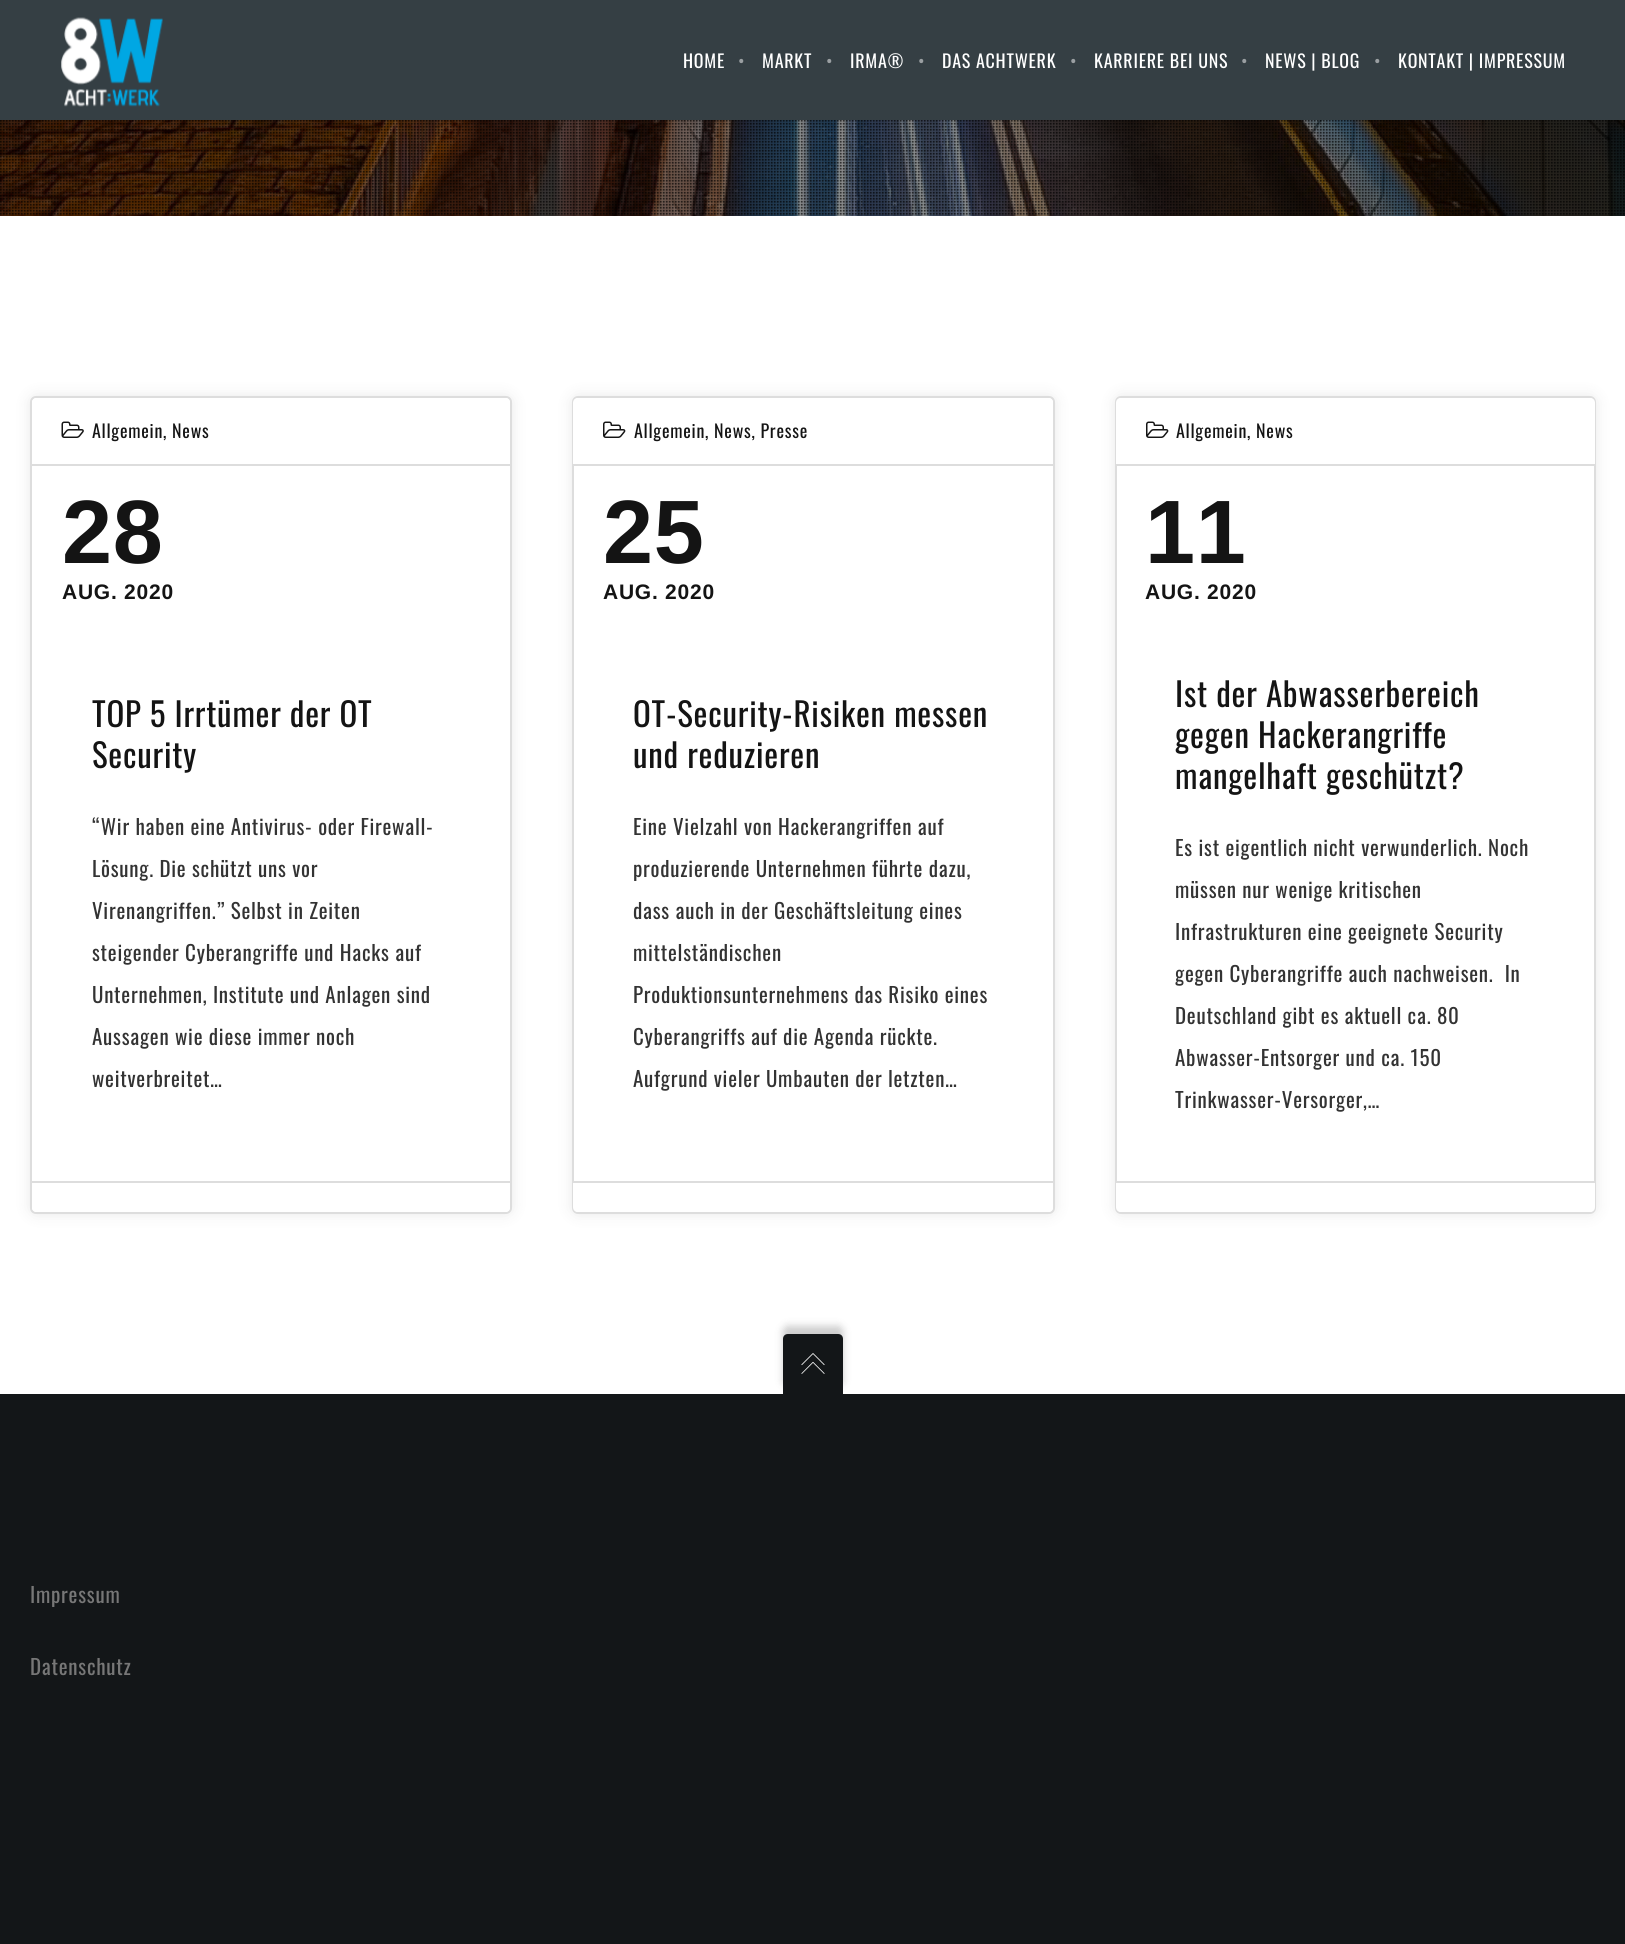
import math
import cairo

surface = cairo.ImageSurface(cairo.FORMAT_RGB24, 1625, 1944)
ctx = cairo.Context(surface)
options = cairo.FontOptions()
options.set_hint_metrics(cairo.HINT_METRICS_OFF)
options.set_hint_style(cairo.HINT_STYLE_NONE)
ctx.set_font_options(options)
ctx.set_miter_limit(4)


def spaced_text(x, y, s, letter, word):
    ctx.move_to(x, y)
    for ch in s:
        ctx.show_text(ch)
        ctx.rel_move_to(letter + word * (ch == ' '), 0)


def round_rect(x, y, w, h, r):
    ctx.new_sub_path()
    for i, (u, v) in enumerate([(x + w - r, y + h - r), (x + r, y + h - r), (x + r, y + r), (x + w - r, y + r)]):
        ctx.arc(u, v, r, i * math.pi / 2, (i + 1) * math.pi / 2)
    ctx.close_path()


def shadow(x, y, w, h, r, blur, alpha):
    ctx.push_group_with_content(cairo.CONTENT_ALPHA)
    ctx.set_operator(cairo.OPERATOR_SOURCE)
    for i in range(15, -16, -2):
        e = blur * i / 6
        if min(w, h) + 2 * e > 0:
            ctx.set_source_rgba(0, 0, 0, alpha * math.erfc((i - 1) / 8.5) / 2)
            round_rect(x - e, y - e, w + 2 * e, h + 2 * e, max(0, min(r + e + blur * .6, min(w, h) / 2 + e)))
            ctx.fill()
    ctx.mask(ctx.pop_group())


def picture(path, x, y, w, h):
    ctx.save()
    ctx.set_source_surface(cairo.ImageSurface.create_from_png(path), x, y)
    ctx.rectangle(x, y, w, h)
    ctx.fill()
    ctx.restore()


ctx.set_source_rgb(1, 1, 1)
ctx.paint()
picture("img2.png", 0, 120, 1625, 96)
picture("img3.png", 0, 120, 1625, 96)
ctx.set_source_rgb(0, 0, 0)
shadow(6, 14, 1614, 108, 0, 4, 0.1)
ctx.set_source_rgb(0.208, 0.247, 0.267)
ctx.rectangle(0, 0, 1625, 120)
ctx.fill()
picture("img1.png", 61, 17, 102, 90)
ctx.select_font_face("Oswald")
ctx.set_font_size(18)
ctx.set_source_rgb(1, 1, 1)
spaced_text(683, 68, "HOME", 0.75, 0)
ctx.set_source_rgb(0.604, 0.624, 0.635)
spaced_text(738, 68, "•", 0.75, 0)
ctx.set_source_rgb(1, 1, 1)
spaced_text(762, 68, "MARKT", 0.75, 0)
ctx.set_source_rgb(0.604, 0.624, 0.635)
spaced_text(826, 68, "•", 0.75, 0)
ctx.set_source_rgb(1, 1, 1)
spaced_text(850, 68, "IRMA®", 0.75, 0)
ctx.set_source_rgb(0.604, 0.624, 0.635)
spaced_text(918, 68, "•", 0.75, 0)
ctx.set_source_rgb(1, 1, 1)
spaced_text(942, 68, "DAS ACHTWERK", 0.75, 0)
ctx.set_source_rgb(0.604, 0.624, 0.635)
spaced_text(1070, 68, "•", 0.75, 0)
ctx.set_source_rgb(1, 1, 1)
spaced_text(1094, 68, "KARRIERE BEI UNS", 0.75, 0)
ctx.set_source_rgb(0.604, 0.624, 0.635)
spaced_text(1241, 68, "•", 0.75, 0)
ctx.set_source_rgb(1, 1, 1)
spaced_text(1265, 68, "NEWS | BLOG", 0.75, 0)
ctx.set_source_rgb(0.604, 0.624, 0.635)
spaced_text(1374, 68, "•", 0.75, 0)
ctx.set_source_rgb(1, 1, 1)
spaced_text(1398, 68, "KONTAKT | IMPRESSUM", 0.75, 0)
ctx.set_source_rgb(0, 0, 0)
shadow(30, 396, 482, 818, 6, 7.5, 0.09)
ctx.set_source_rgb(1, 1, 1)
round_rect(31, 397, 480, 816, 5)
ctx.fill_preserve()
ctx.set_source_rgb(0.867, 0.867, 0.867)
ctx.stroke()
ctx.set_source_rgb(1, 1, 1)
ctx.new_path()
ctx.move_to(37, 398)
ctx.line_to(505, 398)
ctx.curve_to(508, 398, 510, 400, 510, 403)
ctx.line_to(510, 465)
ctx.line_to(32, 465)
ctx.line_to(32, 403)
ctx.curve_to(32, 400, 34, 398, 37, 398)
ctx.close_path()
ctx.fill()
ctx.set_source_rgb(0.867, 0.867, 0.867)
ctx.rectangle(32, 464, 478, 2)
ctx.fill()
picture("img4.png", 61, 421, 23, 17)
ctx.set_source_rgb(0.082, 0.082, 0.082)
spaced_text(92, 438, "Allgemein, News", 0.75, 0)
ctx.select_font_face("Liberation Sans", cairo.FONT_SLANT_NORMAL, cairo.FONT_WEIGHT_BOLD)
ctx.set_font_size(90)
spaced_text(62, 563, "28", 0.75, 0)
ctx.set_font_size(21)
spaced_text(62, 599, "AUG. 2020", 0.75, 0)
ctx.select_font_face("Oswald")
ctx.set_font_size(33)
spaced_text(92, 727, "TOP 5 Irrtümer der OT", 0.75, 0)
spaced_text(92, 768, "Security", 0.75, 0)
ctx.set_font_size(21)
ctx.set_source_rgb(0.2, 0.2, 0.2)
spaced_text(92, 835, "“Wir haben eine Antivirus- oder Firewall-", 0.75, 0)
spaced_text(92, 877, "Lösung. Die schützt uns vor", 0.75, 0)
spaced_text(92, 919, "Virenangriffen.” Selbst in Zeiten", 0.75, 0)
spaced_text(92, 961, "steigender Cyberangriffe und Hacks auf", 0.75, 0)
spaced_text(92, 1003, "Unternehmen, Institute und Anlagen sind", 0.75, 0)
spaced_text(92, 1045, "Aussagen wie diese immer noch", 0.75, 0)
spaced_text(92, 1087, "weitverbreitet…", 0.75, 0)
ctx.set_source_rgb(1, 1, 1)
ctx.new_path()
ctx.move_to(32, 1181)
ctx.line_to(510, 1181)
ctx.line_to(510, 1207)
ctx.curve_to(510, 1210, 508, 1212, 505, 1212)
ctx.line_to(37, 1212)
ctx.curve_to(34, 1212, 32, 1210, 32, 1207)
ctx.close_path()
ctx.fill()
ctx.set_source_rgb(0.867, 0.867, 0.867)
ctx.rectangle(32, 1181, 478, 2)
ctx.fill()
ctx.set_source_rgb(0, 0, 0)
shadow(572, 396, 483, 818, 6, 7.5, 0.09)
ctx.set_source_rgb(1, 1, 1)
round_rect(573, 397, 481, 816, 5)
ctx.fill_preserve()
ctx.set_source_rgb(0.867, 0.867, 0.867)
ctx.stroke()
ctx.set_source_rgb(1, 1, 1)
ctx.new_path()
ctx.move_to(578, 398)
ctx.line_to(1048, 398)
ctx.curve_to(1051, 398, 1053, 400, 1053, 403)
ctx.line_to(1053, 465)
ctx.line_to(573, 465)
ctx.line_to(573, 403)
ctx.curve_to(573, 400, 575, 398, 578, 398)
ctx.close_path()
ctx.fill()
ctx.set_source_rgb(0.867, 0.867, 0.867)
ctx.rectangle(573, 464, 480, 2)
ctx.fill()
picture("img5.png", 603, 421, 23, 17)
ctx.set_font_size(18)
ctx.set_source_rgb(0.082, 0.082, 0.082)
spaced_text(634, 438, "Allgemein, News, Presse", 0.75, 0)
ctx.select_font_face("Liberation Sans", cairo.FONT_SLANT_NORMAL, cairo.FONT_WEIGHT_BOLD)
ctx.set_font_size(90)
spaced_text(603, 563, "25", 0.75, 0)
ctx.set_font_size(21)
spaced_text(603, 599, "AUG. 2020", 0.75, 0)
ctx.select_font_face("Oswald")
ctx.set_font_size(33)
spaced_text(633, 727, "OT-Security-Risiken messen", 0.75, 0)
spaced_text(633, 768, "und reduzieren", 0.75, 0)
ctx.set_font_size(21)
ctx.set_source_rgb(0.2, 0.2, 0.2)
spaced_text(633, 835, "Eine Vielzahl von Hackerangriffen auf", 0.75, 0)
spaced_text(633, 877, "produzierende Unternehmen führte dazu,", 0.75, 0)
spaced_text(633, 919, "dass auch in der Geschäftsleitung eines", 0.75, 0)
spaced_text(633, 961, "mittelständischen", 0.75, 0)
spaced_text(633, 1003, "Produktionsunternehmens das Risiko eines", 0.75, 0)
spaced_text(633, 1045, "Cyberangriffs auf die Agenda rückte.", 0.75, 0)
spaced_text(633, 1087, "Aufgrund vieler Umbauten der letzten…", 0.75, 0)
ctx.set_source_rgb(1, 1, 1)
ctx.new_path()
ctx.move_to(573, 1181)
ctx.line_to(1053, 1181)
ctx.line_to(1053, 1207)
ctx.curve_to(1053, 1210, 1051, 1212, 1048, 1212)
ctx.line_to(578, 1212)
ctx.curve_to(575, 1212, 573, 1210, 573, 1207)
ctx.close_path()
ctx.fill()
ctx.set_source_rgb(0.867, 0.867, 0.867)
ctx.rectangle(573, 1181, 480, 2)
ctx.fill()
ctx.set_source_rgb(0, 0, 0)
shadow(1115, 396, 481, 818, 6, 7.5, 0.09)
ctx.set_source_rgb(1, 1, 1)
round_rect(1116, 397, 479, 816, 5)
ctx.fill_preserve()
ctx.set_source_rgb(0.867, 0.867, 0.867)
ctx.stroke()
ctx.set_source_rgb(1, 1, 1)
ctx.new_path()
ctx.move_to(1121, 398)
ctx.line_to(1590, 398)
ctx.curve_to(1593, 398, 1595, 400, 1595, 403)
ctx.line_to(1595, 465)
ctx.line_to(1116, 465)
ctx.line_to(1116, 403)
ctx.curve_to(1116, 400, 1118, 398, 1121, 398)
ctx.close_path()
ctx.fill()
ctx.set_source_rgb(0.867, 0.867, 0.867)
ctx.rectangle(1116, 464, 479, 2)
ctx.fill()
picture("img5.png", 1146, 421, 23, 17)
ctx.set_font_size(18)
ctx.set_source_rgb(0.082, 0.082, 0.082)
spaced_text(1176, 438, "Allgemein, News", 0.75, 0)
ctx.select_font_face("Liberation Sans", cairo.FONT_SLANT_NORMAL, cairo.FONT_WEIGHT_BOLD)
ctx.set_font_size(90)
spaced_text(1145, 563, "11", 0.75, 0)
ctx.set_font_size(21)
spaced_text(1145, 599, "AUG. 2020", 0.75, 0)
ctx.select_font_face("Oswald")
ctx.set_font_size(33)
spaced_text(1175, 707, "Ist der Abwasserbereich", 0.75, 0)
spaced_text(1175, 748, "gegen Hackerangriffe", 0.75, 0)
spaced_text(1175, 789, "mangelhaft geschützt?", 0.75, 0)
ctx.set_font_size(21)
ctx.set_source_rgb(0.2, 0.2, 0.2)
spaced_text(1175, 856, "Es ist eigentlich nicht verwunderlich. Noch", 0.75, 0)
spaced_text(1175, 898, "müssen nur wenige kritischen", 0.75, 0)
spaced_text(1175, 940, "Infrastrukturen eine geeignete Security", 0.75, 0)
spaced_text(1175, 982, "gegen Cyberangriffe auch nachweisen.  In", 0.75, 0)
spaced_text(1175, 1024, "Deutschland gibt es aktuell ca. 80", 0.75, 0)
spaced_text(1175, 1066, "Abwasser-Entsorger und ca. 150", 0.75, 0)
spaced_text(1175, 1108, "Trinkwasser-Versorger,…", 0.75, 0)
ctx.set_source_rgb(1, 1, 1)
ctx.new_path()
ctx.move_to(1116, 1181)
ctx.line_to(1595, 1181)
ctx.line_to(1595, 1207)
ctx.curve_to(1595, 1210, 1593, 1212, 1590, 1212)
ctx.line_to(1121, 1212)
ctx.curve_to(1118, 1212, 1116, 1210, 1116, 1207)
ctx.close_path()
ctx.fill()
ctx.set_source_rgb(0.867, 0.867, 0.867)
ctx.rectangle(1116, 1181, 479, 2)
ctx.fill()
ctx.set_source_rgb(0.078, 0.086, 0.094)
ctx.rectangle(0, 1394, 1625, 550)
ctx.fill()
ctx.set_source_rgb(0, 0, 0)
shadow(783, 1326, 60, 60, 5, 4, 0.2)
ctx.set_source_rgb(0.078, 0.086, 0.094)
ctx.new_path()
ctx.move_to(788, 1334)
ctx.line_to(838, 1334)
ctx.curve_to(841, 1334, 843, 1336, 843, 1339)
ctx.line_to(843, 1394)
ctx.line_to(783, 1394)
ctx.line_to(783, 1339)
ctx.curve_to(783, 1336, 785, 1334, 788, 1334)
ctx.close_path()
ctx.fill()
picture("img6.png", 801, 1353, 24, 21)
ctx.set_source_rgb(0.467, 0.467, 0.467)
spaced_text(30, 1603, "Impressum", 0.75, 0)
spaced_text(30, 1675, "Datenschutz", 0.75, 0)
surface.write_to_png("page.png")
